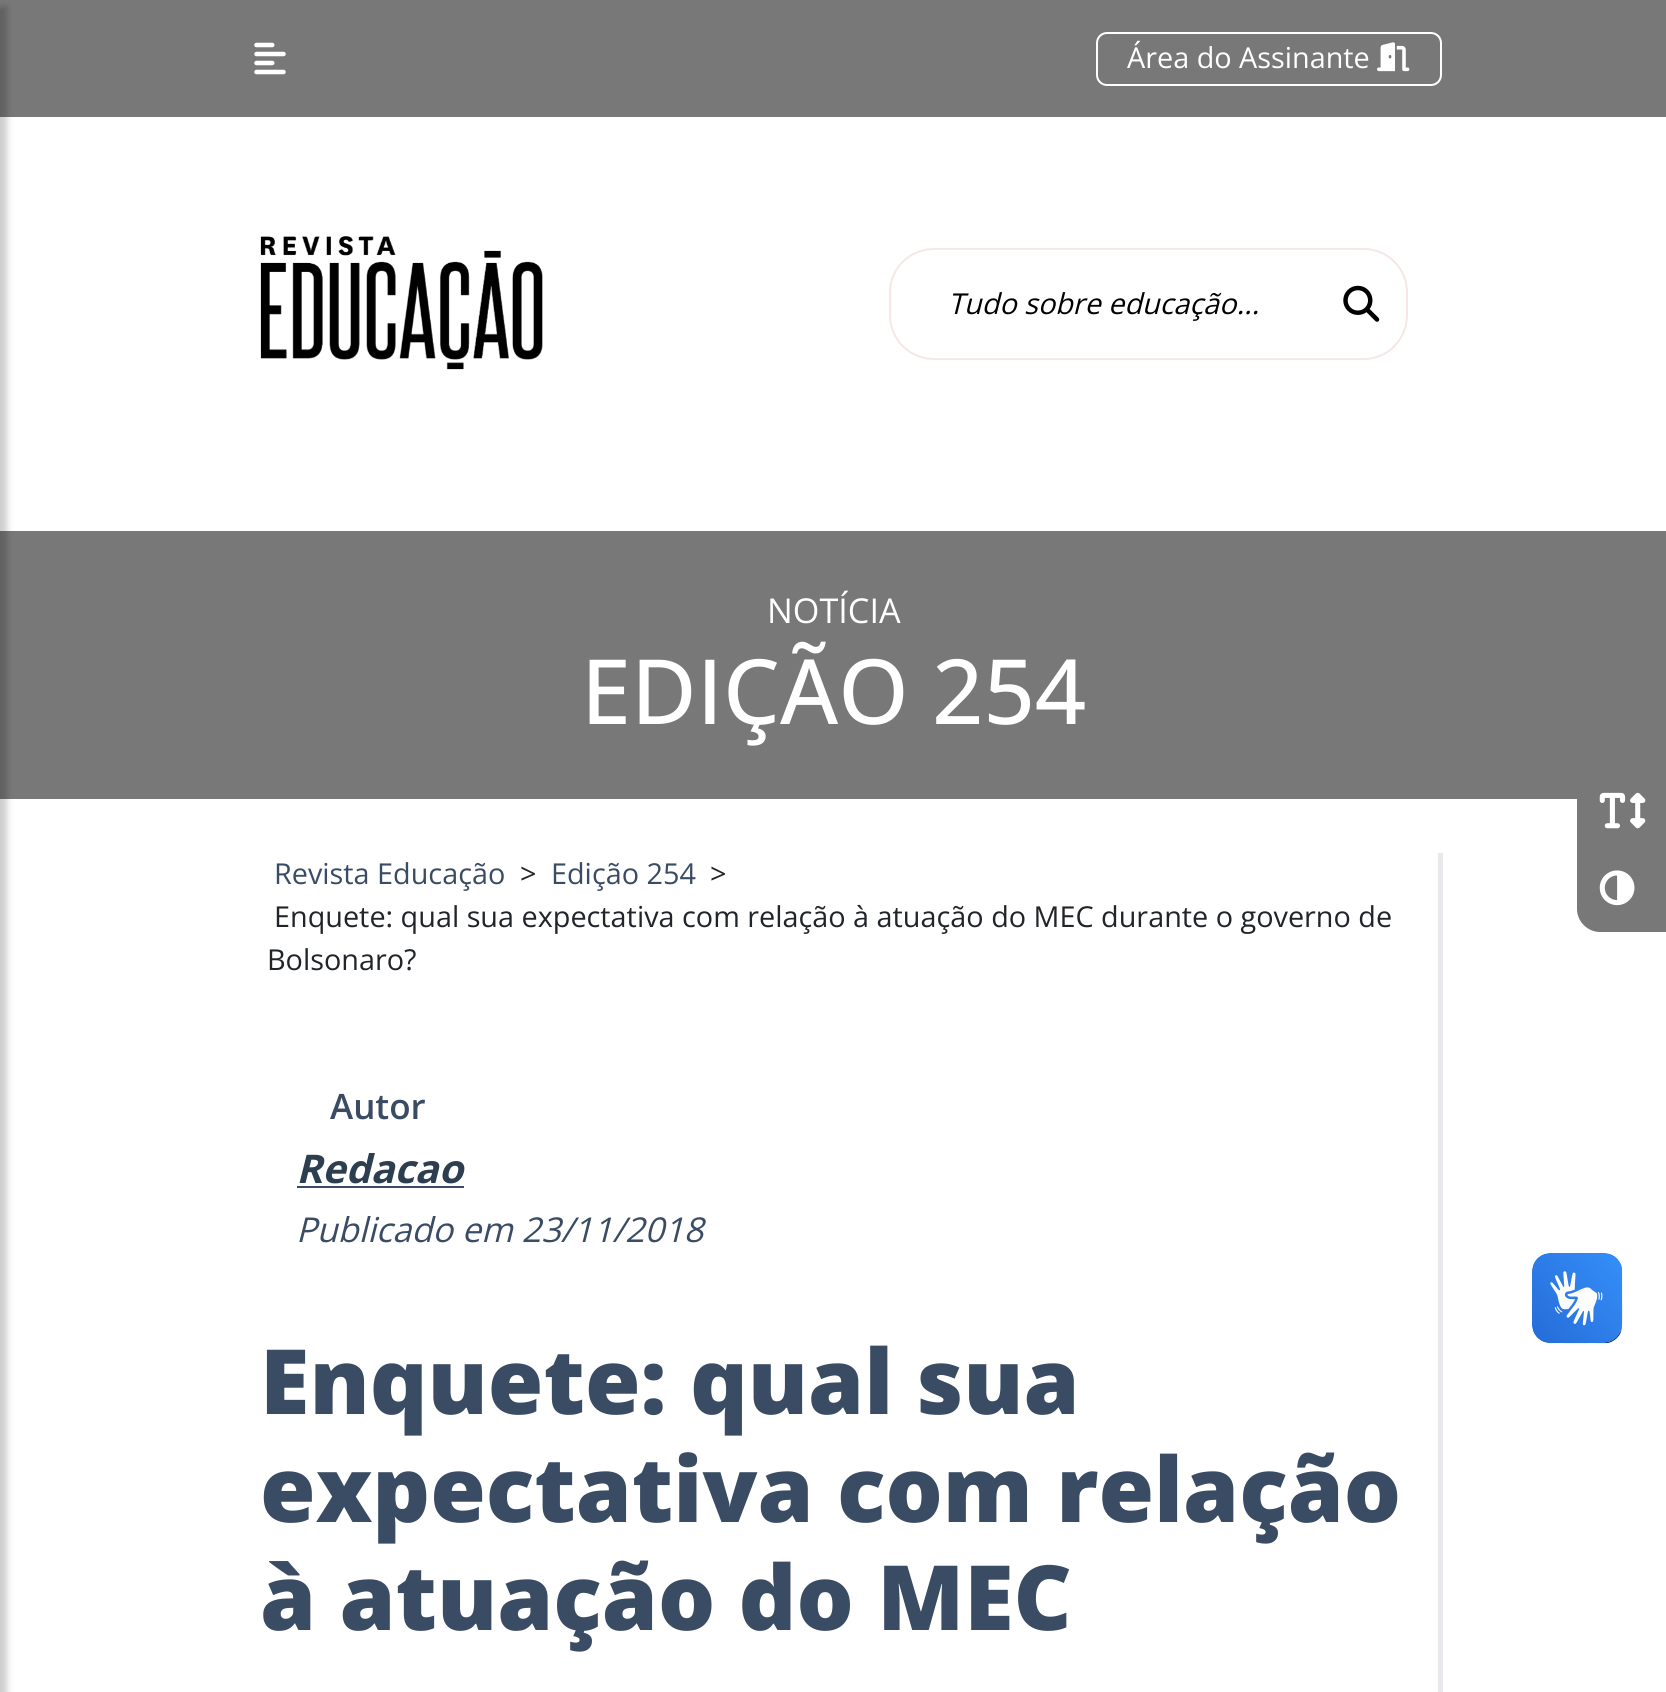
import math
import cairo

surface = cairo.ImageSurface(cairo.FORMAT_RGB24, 1666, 1692)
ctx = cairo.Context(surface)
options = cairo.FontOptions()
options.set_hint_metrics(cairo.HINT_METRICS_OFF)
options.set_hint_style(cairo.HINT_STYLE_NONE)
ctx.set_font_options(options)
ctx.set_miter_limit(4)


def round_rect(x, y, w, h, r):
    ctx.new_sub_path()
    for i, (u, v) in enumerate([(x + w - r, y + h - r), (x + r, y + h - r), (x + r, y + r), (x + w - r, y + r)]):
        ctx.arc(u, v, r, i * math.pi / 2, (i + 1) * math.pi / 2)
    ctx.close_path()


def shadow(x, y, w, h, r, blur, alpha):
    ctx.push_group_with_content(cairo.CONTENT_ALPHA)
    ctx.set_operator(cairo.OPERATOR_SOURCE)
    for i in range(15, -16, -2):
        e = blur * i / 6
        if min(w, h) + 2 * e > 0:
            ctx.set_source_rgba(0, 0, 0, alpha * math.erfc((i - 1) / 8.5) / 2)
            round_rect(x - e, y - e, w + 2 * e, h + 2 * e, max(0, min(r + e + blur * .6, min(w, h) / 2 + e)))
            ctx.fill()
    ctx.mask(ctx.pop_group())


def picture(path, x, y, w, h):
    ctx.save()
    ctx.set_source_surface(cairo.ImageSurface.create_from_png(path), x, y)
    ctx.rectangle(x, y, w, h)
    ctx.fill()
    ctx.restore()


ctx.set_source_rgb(1, 1, 1)
ctx.paint()
ctx.set_source_rgb(0.471, 0.471, 0.471)
ctx.rectangle(0, 0, 1666, 117)
ctx.fill()
ctx.rectangle(0, 531, 1666, 268)
ctx.fill()
ctx.set_source_rgb(0, 0, 0)
shadow(-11, 7, 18, 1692, 0, 3.5, 0.2)
picture("img1.png", 254, 42, 32, 33)
round_rect(1097, 33, 344, 52, 10)
ctx.set_source_rgb(1, 1, 1)
ctx.stroke()
ctx.select_font_face("Open Sans")
ctx.set_font_size(28.8)
ctx.move_to(1127, 68)
ctx.show_text("Área do Assinante")
picture("img2.png", 1377, 42, 33, 30)
picture("img3.png", 260, 236, 283, 134)
ctx.set_source_rgb(0.965, 0.902, 0.902)
ctx.set_fill_rule(cairo.FILL_RULE_EVEN_ODD)
ctx.new_path()
ctx.move_to(934, 248)
ctx.line_to(1316, 248)
ctx.line_to(1316, 360)
ctx.line_to(934, 360)
ctx.curve_to(909, 360, 889, 340, 889, 315)
ctx.line_to(889, 292)
ctx.curve_to(889, 268, 909, 248, 934, 248)
ctx.close_path()
ctx.move_to(934, 250)
ctx.line_to(1316, 250)
ctx.line_to(1316, 358)
ctx.line_to(934, 358)
ctx.curve_to(910, 358, 891, 339, 891, 315)
ctx.line_to(891, 292)
ctx.curve_to(891, 269, 910, 250, 934, 250)
ctx.close_path()
ctx.fill()
ctx.select_font_face("Open Sans", cairo.FONT_SLANT_ITALIC)
ctx.set_source_rgb(0, 0, 0)
ctx.move_to(948, 314)
ctx.show_text("Tudo sobre educação...")
ctx.set_source_rgb(0.965, 0.902, 0.902)
ctx.new_path()
ctx.move_to(1316, 248)
ctx.line_to(1364, 248)
ctx.curve_to(1388, 248, 1408, 268, 1408, 292)
ctx.line_to(1408, 315)
ctx.curve_to(1408, 340, 1388, 360, 1364, 360)
ctx.line_to(1316, 360)
ctx.close_path()
ctx.move_to(1316, 250)
ctx.line_to(1364, 250)
ctx.curve_to(1387, 250, 1406, 269, 1406, 292)
ctx.line_to(1406, 315)
ctx.curve_to(1406, 339, 1387, 358, 1364, 358)
ctx.line_to(1316, 358)
ctx.close_path()
ctx.fill()
picture("img4.png", 1343, 285, 37, 37)
ctx.select_font_face("Open Sans")
ctx.set_font_size(34.25)
ctx.set_source_rgb(1, 1, 1)
ctx.move_to(767, 623)
ctx.show_text("NOTÍCIA")
ctx.select_font_face("Open Sans Medium")
ctx.set_font_size(90)
ctx.move_to(581, 724)
ctx.show_text("EDIÇÃO 254")
ctx.set_source_rgb(0.914, 0.91, 0.922)
ctx.rectangle(1438, 853, 5, 839)
ctx.fill()
ctx.select_font_face("Open Sans")
ctx.set_font_size(28.8)
ctx.set_source_rgb(0.227, 0.294, 0.392)
ctx.move_to(274, 884)
ctx.show_text("Revista Educação")
ctx.set_source_rgb(0.129, 0.145, 0.161)
ctx.move_to(520, 884)
ctx.show_text(">")
ctx.set_source_rgb(0.227, 0.294, 0.392)
ctx.move_to(551, 884)
ctx.show_text("Edição 254")
ctx.set_source_rgb(0.129, 0.145, 0.161)
ctx.move_to(710, 884)
ctx.show_text(">")
ctx.move_to(274, 927)
ctx.show_text("Enquete: qual sua expectativa com relação à atuação do MEC durante o governo de")
ctx.move_to(267, 970)
ctx.show_text("Bolsonaro?")
ctx.select_font_face("Open Sans SemiBold")
ctx.set_font_size(35)
ctx.set_source_rgb(0.227, 0.294, 0.392)
ctx.move_to(330, 1119)
ctx.show_text("Autor")
ctx.select_font_face("Open Sans", cairo.FONT_SLANT_ITALIC, cairo.FONT_WEIGHT_BOLD)
ctx.set_font_size(39.5)
ctx.set_source_rgb(0.173, 0.243, 0.314)
ctx.move_to(296, 1183)
ctx.show_text("Redacao")
ctx.set_source_rgb(0.227, 0.294, 0.392)
ctx.rectangle(297, 1186, 167, 2)
ctx.fill()
ctx.select_font_face("Open Sans", cairo.FONT_SLANT_ITALIC)
ctx.set_font_size(34.25)
ctx.move_to(296, 1242)
ctx.show_text("Publicado em 23/11/2018")
ctx.select_font_face("Open Sans ExtraBold")
ctx.set_font_size(90)
ctx.move_to(260, 1414)
ctx.show_text("Enquete: qual sua")
ctx.move_to(260, 1522)
ctx.show_text("expectativa com relação")
ctx.move_to(260, 1630)
ctx.show_text("à atuação do MEC")
ctx.set_source_rgb(0.471, 0.471, 0.471)
ctx.new_path()
ctx.move_to(1600, 774)
ctx.line_to(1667, 774)
ctx.line_to(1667, 932)
ctx.line_to(1600, 932)
ctx.curve_to(1587.5, 932, 1577, 921.5, 1577, 909)
ctx.line_to(1577, 797)
ctx.curve_to(1577, 784.5, 1587.5, 774, 1600, 774)
ctx.close_path()
ctx.fill()
picture("img5.png", 1599, 792, 47, 37)
picture("img6.png", 1599, 870, 36, 36)
picture("img7.png", 1532, 1253, 91, 91)
picture("img8.png", 1532, 1253, 90, 90)
surface.write_to_png("page.png")
